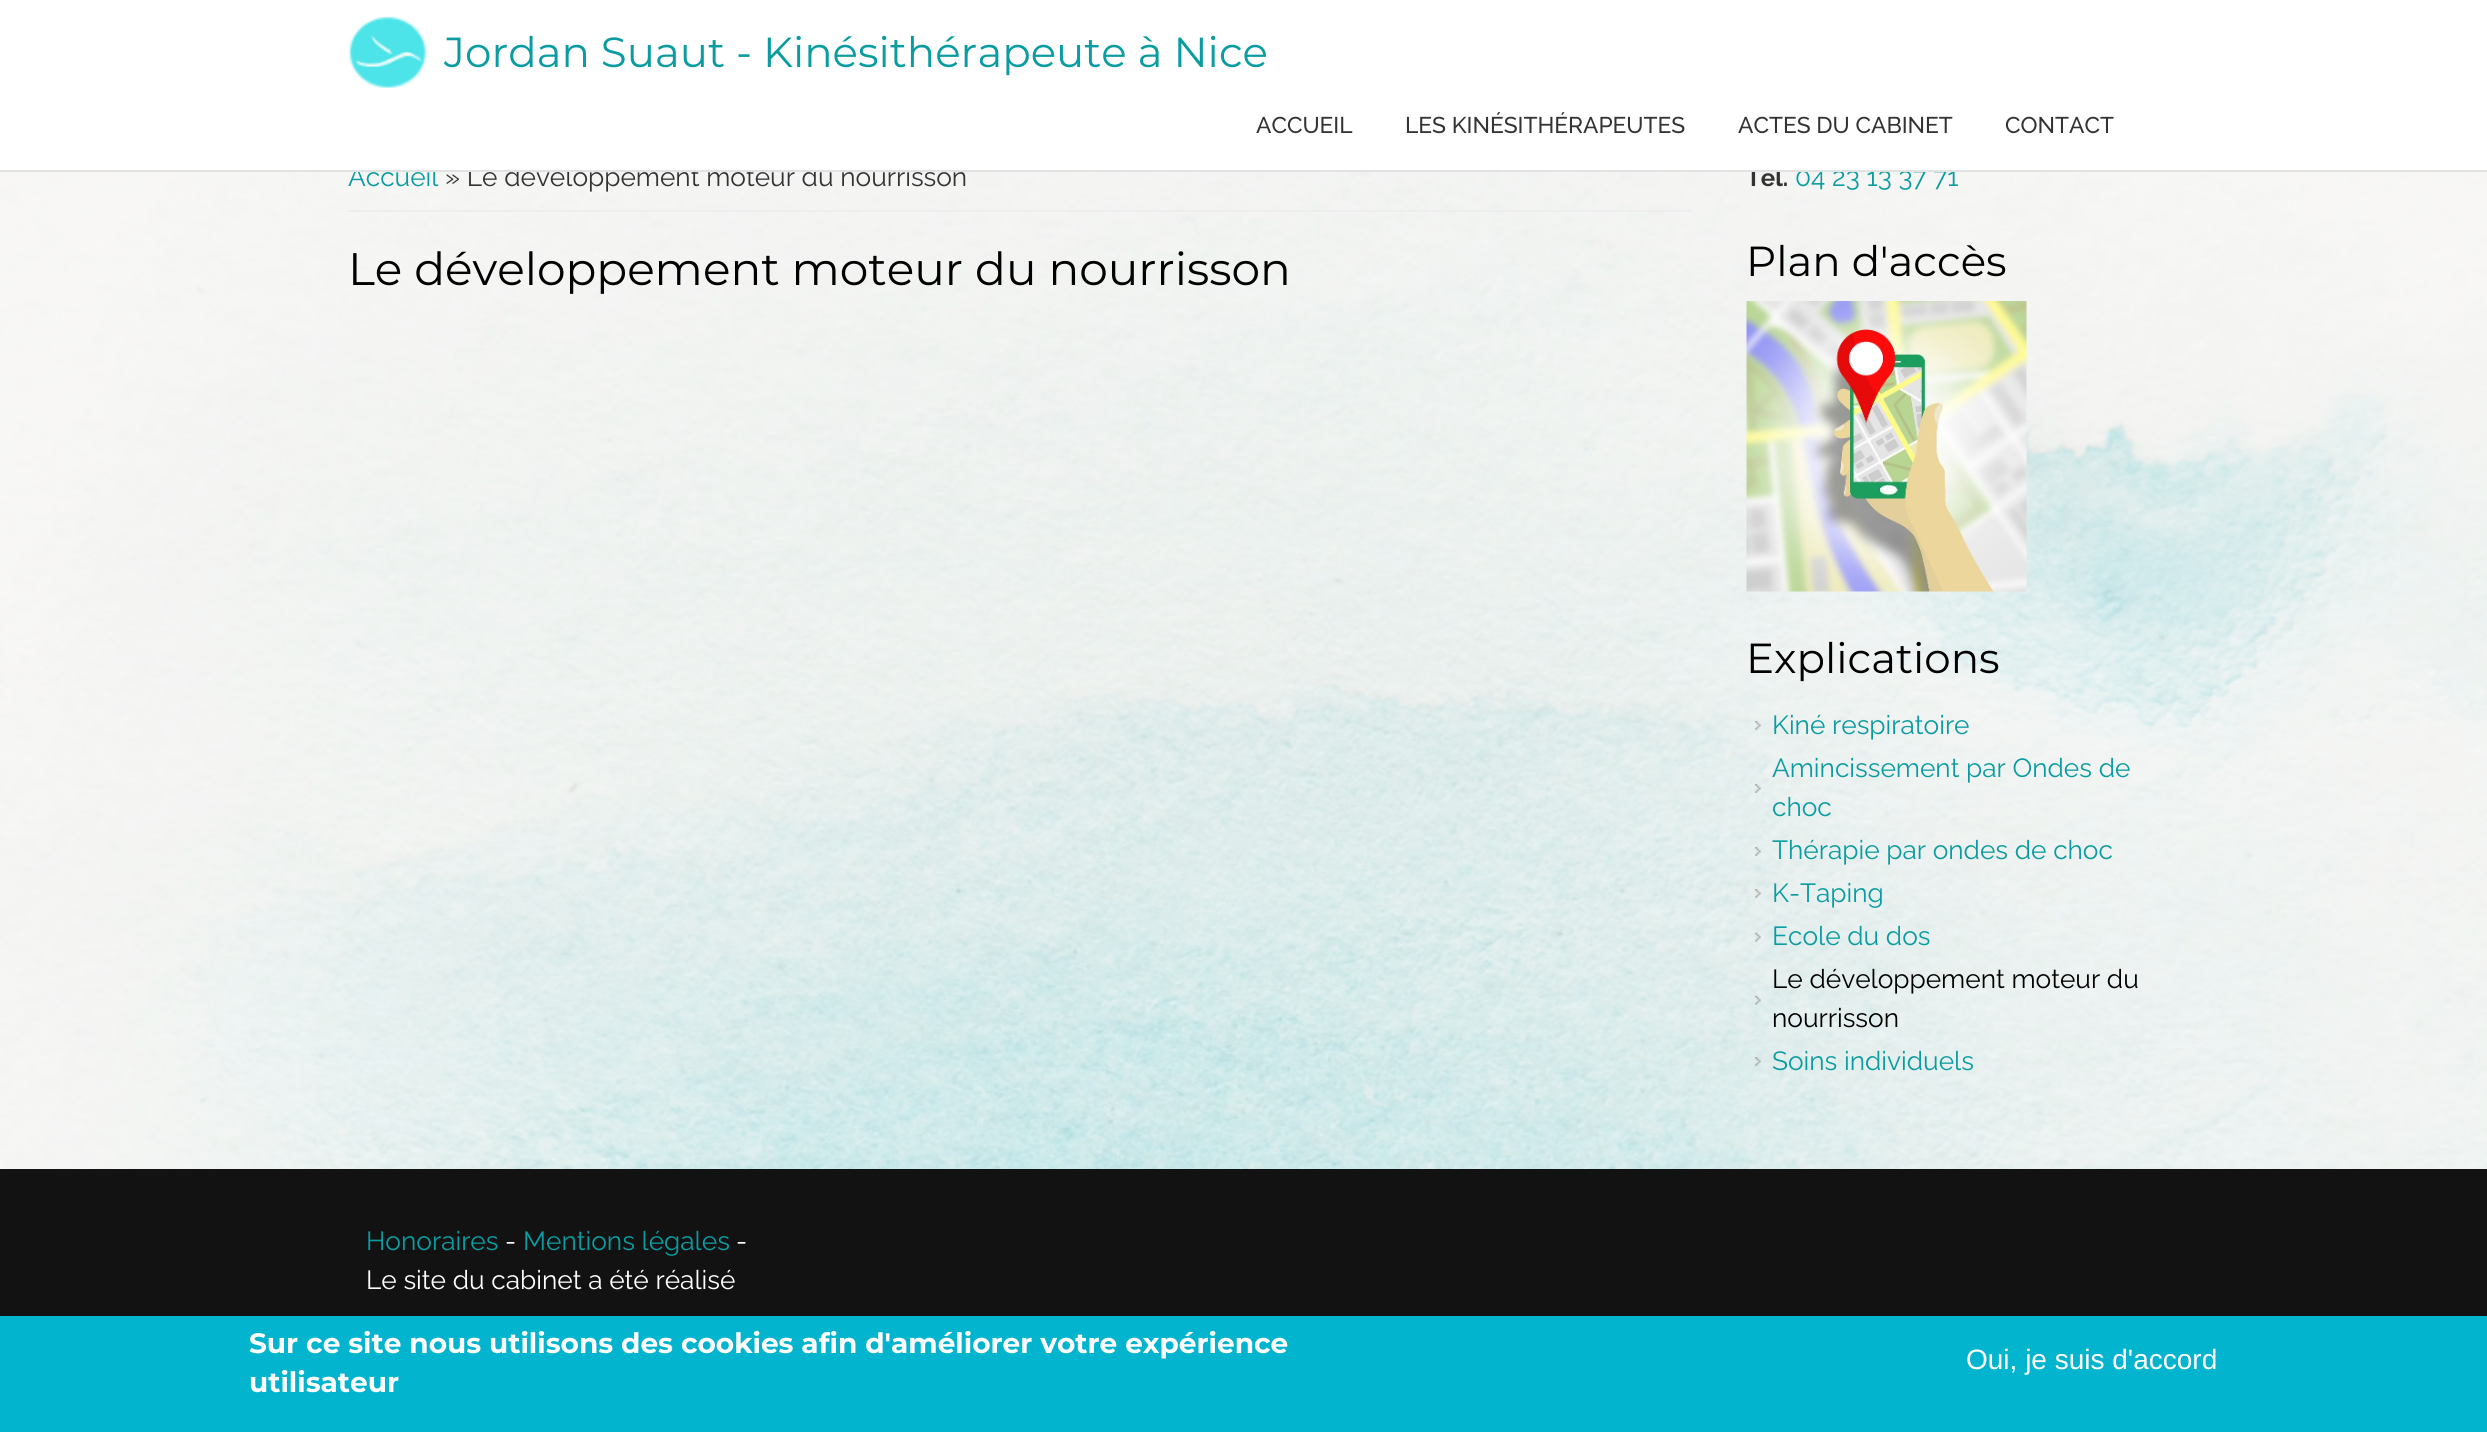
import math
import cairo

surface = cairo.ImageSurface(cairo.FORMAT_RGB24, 2487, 1432)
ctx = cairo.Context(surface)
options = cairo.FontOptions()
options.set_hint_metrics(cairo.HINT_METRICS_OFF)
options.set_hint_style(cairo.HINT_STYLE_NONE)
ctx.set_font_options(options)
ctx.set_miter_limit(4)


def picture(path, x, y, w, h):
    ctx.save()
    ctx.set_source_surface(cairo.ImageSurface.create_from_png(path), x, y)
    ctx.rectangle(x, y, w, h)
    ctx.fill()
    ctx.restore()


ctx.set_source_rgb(1, 1, 1)
ctx.paint()
picture("img1.png", 0, 172, 2487, 997)
ctx.set_source_rgba(1, 1, 1, 0.5)
ctx.rectangle(0, 172, 2487, 997)
ctx.fill()
ctx.select_font_face("Raleway")
ctx.set_font_size(26.25)
ctx.set_source_rgb(0.043, 0.612, 0.631)
ctx.move_to(348, 186)
ctx.show_text("Accueil")
ctx.set_source_rgb(0.2, 0.2, 0.2)
ctx.move_to(445, 186)
ctx.show_text("» Le développement moteur du nourrisson")
ctx.select_font_face("Raleway", cairo.FONT_SLANT_NORMAL, cairo.FONT_WEIGHT_BOLD)
ctx.set_font_size(24)
ctx.move_to(1746, 186)
ctx.show_text("Tél.")
ctx.set_source_rgb(1, 1, 1)
ctx.rectangle(355, 166, 1426, 4)
ctx.fill()
ctx.select_font_face("Raleway")
ctx.set_font_size(26.25)
ctx.set_source_rgb(0.043, 0.612, 0.631)
ctx.move_to(1795, 186)
ctx.show_text("04 23 13 37 71")
ctx.set_source_rgb(0.886, 0.886, 0.886)
ctx.rectangle(0, 170, 2487, 2)
ctx.fill()
picture("img2.png", 348, 15, 80, 73)
ctx.select_font_face("Montserrat")
ctx.set_font_size(42)
ctx.set_source_rgb(0.043, 0.612, 0.631)
ctx.move_to(444, 67)
ctx.show_text("Jordan Suaut - Kinésithérapeute à Nice")
ctx.select_font_face("Raleway Medium")
ctx.set_font_size(22.75)
ctx.set_source_rgb(0.2, 0.2, 0.2)
ctx.move_to(1256, 133)
ctx.show_text("ACCUEIL")
ctx.move_to(1405, 133)
ctx.show_text("LES KINÉSITHÉRAPEUTES")
ctx.move_to(1738, 133)
ctx.show_text("ACTES DU CABINET")
ctx.move_to(2005, 133)
ctx.show_text("CONTACT")
ctx.set_source_rgb(0.933, 0.933, 0.933)
ctx.rectangle(348, 210, 1344, 2)
ctx.fill()
ctx.select_font_face("Montserrat")
ctx.set_font_size(45.5)
ctx.set_source_rgb(0, 0, 0)
ctx.move_to(348, 285)
ctx.show_text("Le développement moteur du nourrisson")
ctx.set_font_size(42)
ctx.move_to(1746, 276)
ctx.show_text("Plan d'accès")
picture("img3.png", 1746, 301, 281, 291)
ctx.move_to(1746, 673)
ctx.show_text("Explications")
picture("img4.png", 1754, 721, 7, 9)
ctx.select_font_face("Raleway")
ctx.set_font_size(26.25)
ctx.set_source_rgb(0.043, 0.612, 0.631)
ctx.move_to(1772, 734)
ctx.show_text("Kiné respiratoire")
picture("img5.png", 1754, 784, 7, 9)
ctx.move_to(1772, 777)
ctx.show_text("Amincissement par Ondes de")
ctx.move_to(1772, 816)
ctx.show_text("choc")
picture("img6.png", 1754, 847, 7, 9)
ctx.move_to(1772, 859)
ctx.show_text("Thérapie par ondes de choc")
picture("img7.png", 1754, 889, 7, 9)
ctx.move_to(1772, 902)
ctx.show_text("K-Taping")
picture("img8.png", 1754, 932, 7, 10)
ctx.move_to(1772, 945)
ctx.show_text("Ecole du dos")
picture("img9.png", 1754, 995, 7, 10)
ctx.set_source_rgb(0, 0, 0)
ctx.move_to(1772, 988)
ctx.show_text("Le développement moteur du")
ctx.move_to(1772, 1027)
ctx.show_text("nourrisson")
picture("img10.png", 1754, 1057, 7, 9)
ctx.set_source_rgb(0.043, 0.612, 0.631)
ctx.move_to(1772, 1070)
ctx.show_text("Soins individuels")
ctx.set_source_rgb(0.071, 0.071, 0.071)
ctx.rectangle(0, 1169, 2487, 147)
ctx.fill()
ctx.set_source_rgb(0.043, 0.612, 0.631)
ctx.move_to(366, 1250)
ctx.show_text("Honoraires")
ctx.set_source_rgb(1, 1, 1)
ctx.move_to(505, 1250)
ctx.show_text("-")
ctx.set_source_rgb(0.043, 0.612, 0.631)
ctx.move_to(523, 1250)
ctx.show_text("Mentions légales")
ctx.set_source_rgb(1, 1, 1)
ctx.move_to(736, 1250)
ctx.show_text("-")
ctx.move_to(366, 1289)
ctx.show_text("Le site du cabinet a été réalisé")
ctx.set_source_rgb(0.008, 0.706, 0.808)
ctx.rectangle(0, 1316, 2487, 116)
ctx.fill()
ctx.select_font_face("Montserrat", cairo.FONT_SLANT_NORMAL, cairo.FONT_WEIGHT_BOLD)
ctx.set_font_size(28)
ctx.set_source_rgb(1, 1, 1)
ctx.move_to(249, 1353)
ctx.show_text("Sur ce site nous utilisons des cookies afin d'améliorer votre expérience")
ctx.move_to(249, 1392)
ctx.show_text("utilisateur")
ctx.select_font_face("Liberation Sans")
ctx.move_to(1966, 1369)
ctx.show_text("Oui, je suis d'accord")
surface.write_to_png("page.png")
